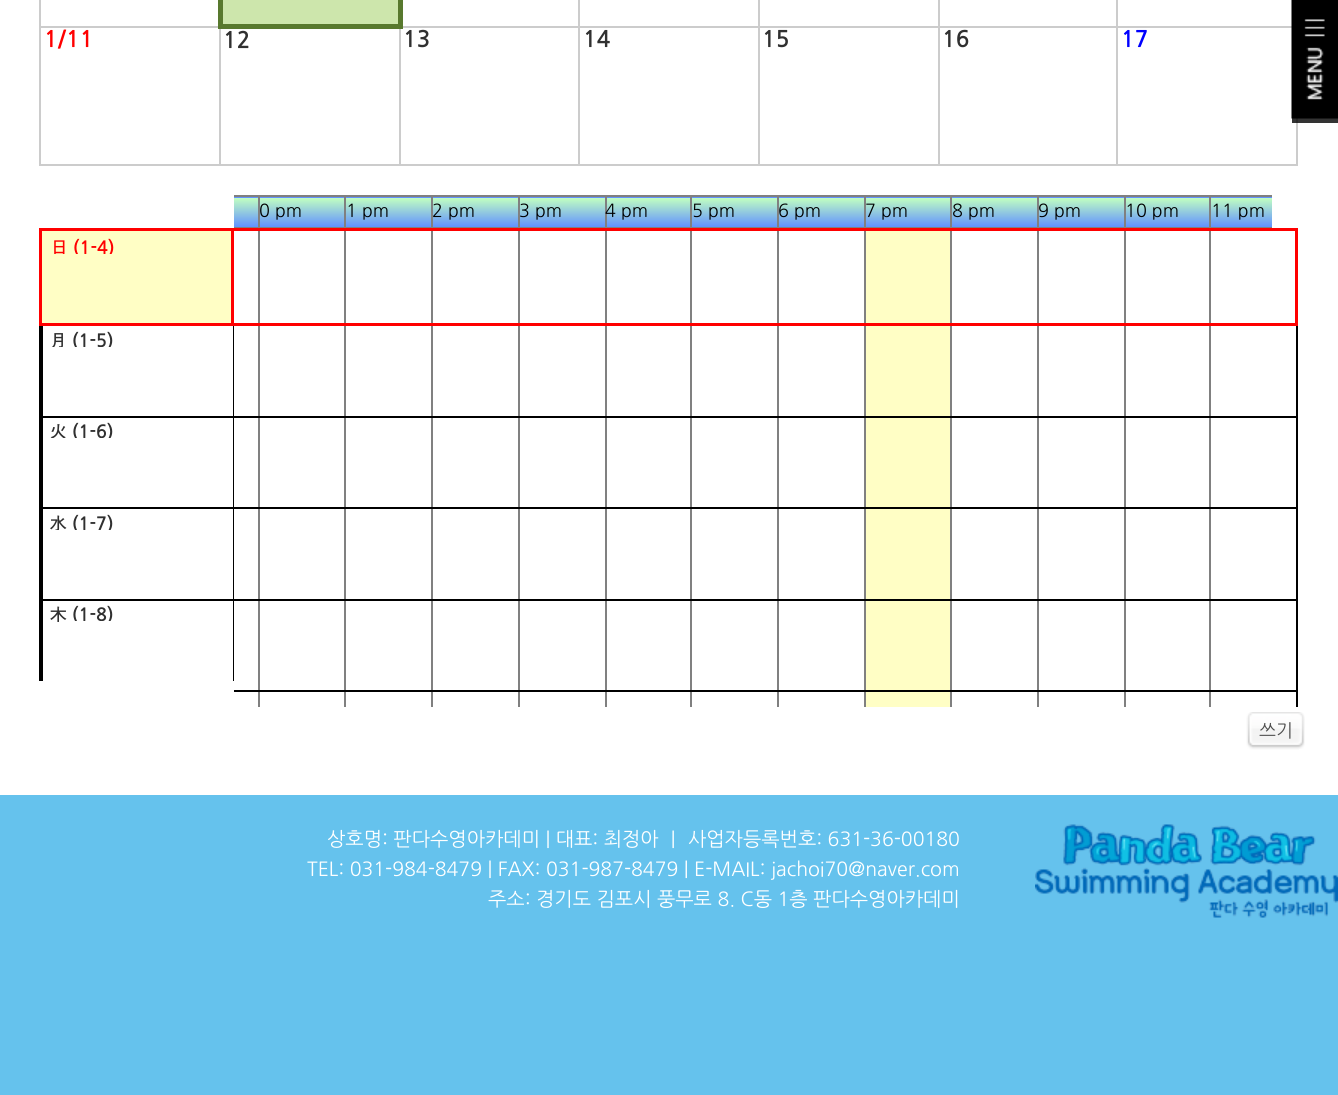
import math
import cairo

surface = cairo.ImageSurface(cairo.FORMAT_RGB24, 1338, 1095)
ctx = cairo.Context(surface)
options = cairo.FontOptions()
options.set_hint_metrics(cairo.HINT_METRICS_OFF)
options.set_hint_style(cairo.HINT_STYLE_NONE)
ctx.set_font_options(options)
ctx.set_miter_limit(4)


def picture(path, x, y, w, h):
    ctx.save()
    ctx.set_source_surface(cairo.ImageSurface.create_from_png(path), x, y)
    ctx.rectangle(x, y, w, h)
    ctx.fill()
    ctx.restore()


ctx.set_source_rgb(1, 1, 1)
ctx.paint()
ctx.set_source_rgb(0.2, 0.2, 0.2)
ctx.rectangle(1292, 118, 46, 5)
ctx.fill()
ctx.set_source_rgb(0.804, 0.902, 0.675)
ctx.rectangle(223, 0, 175, 24)
ctx.fill()
ctx.set_source_rgb(0.8, 0.8, 0.8)
ctx.rectangle(1116, 26, 182, 2)
ctx.fill()
ctx.rectangle(1296, 123, 2, 42)
ctx.fill()
ctx.rectangle(1116, 164, 182, 2)
ctx.fill()
ctx.rectangle(1116, 26, 2, 139)
ctx.fill()
ctx.rectangle(938, 26, 180, 2)
ctx.fill()
ctx.rectangle(938, 164, 180, 2)
ctx.fill()
ctx.rectangle(938, 26, 2, 139)
ctx.fill()
ctx.rectangle(758, 26, 181, 2)
ctx.fill()
ctx.rectangle(758, 164, 181, 2)
ctx.fill()
ctx.rectangle(758, 26, 2, 139)
ctx.fill()
ctx.rectangle(578, 26, 181, 2)
ctx.fill()
ctx.rectangle(578, 164, 181, 2)
ctx.fill()
ctx.rectangle(578, 26, 2, 139)
ctx.fill()
ctx.rectangle(399, 26, 180, 2)
ctx.fill()
ctx.rectangle(399, 164, 180, 2)
ctx.fill()
ctx.rectangle(399, 26, 2, 139)
ctx.fill()
ctx.set_source_rgb(0.345, 0.475, 0.18)
ctx.rectangle(398, 0, 5, 29)
ctx.fill()
ctx.set_source_rgb(0.8, 0.8, 0.8)
ctx.rectangle(219, 164, 182, 2)
ctx.fill()
ctx.rectangle(219, 26, 2, 139)
ctx.fill()
ctx.rectangle(39, 26, 182, 2)
ctx.fill()
ctx.set_source_rgb(0.345, 0.475, 0.18)
ctx.rectangle(218, 24, 184, 5)
ctx.fill()
ctx.rectangle(218, 0, 5, 29)
ctx.fill()
ctx.set_source_rgb(0.8, 0.8, 0.8)
ctx.rectangle(578, 0, 2, 27)
ctx.fill()
ctx.rectangle(758, 0, 2, 27)
ctx.fill()
ctx.rectangle(938, 0, 2, 27)
ctx.fill()
ctx.rectangle(1116, 0, 2, 27)
ctx.fill()
ctx.rectangle(39, 164, 182, 2)
ctx.fill()
ctx.rectangle(39, 0, 2, 165)
ctx.fill()
ctx.select_font_face("NanumGothic", cairo.FONT_SLANT_NORMAL, cairo.FONT_WEIGHT_BOLD)
ctx.set_font_size(22.5)
ctx.set_source_rgb(1, 0, 0)
ctx.move_to(44, 47)
ctx.show_text("1/11")
ctx.set_source_rgb(0.188, 0.188, 0.188)
ctx.move_to(223, 48)
ctx.show_text("12")
ctx.move_to(403, 47)
ctx.show_text("13")
ctx.move_to(583, 47)
ctx.show_text("14")
ctx.move_to(762, 47)
ctx.show_text("15")
ctx.move_to(942, 47)
ctx.show_text("16")
ctx.set_source_rgb(0.161, 0.161, 0.161)
ctx.rectangle(1296, 118, 2, 5)
ctx.fill()
ctx.set_source_rgb(0, 0, 1)
ctx.move_to(1121, 47)
ctx.show_text("17")
gradient = cairo.LinearGradient(174, 170, 174, 198)
gradient.add_color_stop_rgba(0, 0.757, 1, 0.757, 1)
gradient.add_color_stop_rgba(1, 0.38, 0.569, 1, 1)
ctx.set_source(gradient)
ctx.rectangle(234, 197, 24, 1)
ctx.fill()
gradient = cairo.LinearGradient(174, 198, 174, 227)
gradient.add_color_stop_rgba(0, 0.757, 1, 0.757, 1)
gradient.add_color_stop_rgba(1, 0.38, 0.569, 1, 1)
ctx.set_source(gradient)
ctx.rectangle(234, 198, 24, 29)
ctx.fill()
ctx.set_source_rgb(0.502, 0.502, 0.502)
ctx.rectangle(1209, 195, 63, 2)
ctx.fill()
gradient = cairo.LinearGradient(1125, 170, 1125, 198)
gradient.add_color_stop_rgba(0, 0.757, 1, 0.757, 1)
gradient.add_color_stop_rgba(1, 0.38, 0.569, 1, 1)
ctx.set_source(gradient)
ctx.rectangle(1124, 197, 87, 1)
ctx.fill()
ctx.set_source_rgb(0.502, 0.502, 0.502)
ctx.rectangle(1209, 227, 63, 1)
ctx.fill()
ctx.rectangle(1209, 195, 2, 512)
ctx.fill()
ctx.rectangle(1124, 195, 87, 2)
ctx.fill()
ctx.rectangle(1124, 227, 87, 1)
ctx.fill()
ctx.rectangle(1124, 195, 2, 512)
ctx.fill()
ctx.rectangle(1037, 195, 88, 2)
ctx.fill()
gradient = cairo.LinearGradient(953, 170, 953, 198)
gradient.add_color_stop_rgba(0, 0.757, 1, 0.757, 1)
gradient.add_color_stop_rgba(1, 0.38, 0.569, 1, 1)
ctx.set_source(gradient)
ctx.rectangle(951, 197, 87, 1)
ctx.fill()
gradient = cairo.LinearGradient(1040, 170, 1040, 198)
gradient.add_color_stop_rgba(0, 0.757, 1, 0.757, 1)
gradient.add_color_stop_rgba(1, 0.38, 0.569, 1, 1)
ctx.set_source(gradient)
ctx.rectangle(1038, 197, 86, 1)
ctx.fill()
ctx.set_source_rgb(0.502, 0.502, 0.502)
ctx.rectangle(1037, 227, 88, 1)
ctx.fill()
ctx.rectangle(1037, 195, 2, 512)
ctx.fill()
ctx.rectangle(950, 195, 88, 2)
ctx.fill()
gradient = cairo.LinearGradient(866, 170, 866, 198)
gradient.add_color_stop_rgba(0, 0.757, 1, 0.757, 1)
gradient.add_color_stop_rgba(1, 0.38, 0.569, 1, 1)
ctx.set_source(gradient)
ctx.rectangle(864, 197, 87, 1)
ctx.fill()
ctx.set_source_rgb(0.502, 0.502, 0.502)
ctx.rectangle(950, 227, 88, 1)
ctx.fill()
ctx.rectangle(950, 195, 2, 512)
ctx.fill()
ctx.rectangle(864, 195, 87, 2)
ctx.fill()
ctx.rectangle(864, 227, 87, 1)
ctx.fill()
ctx.rectangle(864, 195, 2, 512)
ctx.fill()
ctx.rectangle(777, 195, 89, 2)
ctx.fill()
gradient = cairo.LinearGradient(779, 170, 779, 198)
gradient.add_color_stop_rgba(0, 0.757, 1, 0.757, 1)
gradient.add_color_stop_rgba(1, 0.38, 0.569, 1, 1)
ctx.set_source(gradient)
ctx.rectangle(777, 197, 87, 1)
ctx.fill()
ctx.set_source_rgb(0.502, 0.502, 0.502)
ctx.rectangle(777, 227, 89, 1)
ctx.fill()
ctx.rectangle(777, 195, 2, 512)
ctx.fill()
ctx.rectangle(690, 195, 89, 2)
ctx.fill()
gradient = cairo.LinearGradient(606, 170, 606, 198)
gradient.add_color_stop_rgba(0, 0.757, 1, 0.757, 1)
gradient.add_color_stop_rgba(1, 0.38, 0.569, 1, 1)
ctx.set_source(gradient)
ctx.rectangle(605, 197, 87, 1)
ctx.fill()
ctx.set_source_rgb(0.502, 0.502, 0.502)
ctx.rectangle(690, 227, 89, 1)
ctx.fill()
ctx.rectangle(690, 195, 2, 512)
ctx.fill()
ctx.rectangle(605, 195, 87, 2)
ctx.fill()
ctx.rectangle(605, 227, 87, 1)
ctx.fill()
ctx.rectangle(605, 195, 2, 512)
ctx.fill()
ctx.rectangle(518, 195, 88, 2)
ctx.fill()
gradient = cairo.LinearGradient(519, 170, 519, 198)
gradient.add_color_stop_rgba(0, 0.757, 1, 0.757, 1)
gradient.add_color_stop_rgba(1, 0.38, 0.569, 1, 1)
ctx.set_source(gradient)
ctx.rectangle(518, 197, 87, 1)
ctx.fill()
ctx.set_source_rgb(0.502, 0.502, 0.502)
ctx.rectangle(518, 227, 88, 1)
ctx.fill()
ctx.rectangle(518, 195, 2, 512)
ctx.fill()
ctx.rectangle(431, 195, 88, 2)
ctx.fill()
gradient = cairo.LinearGradient(347, 170, 347, 198)
gradient.add_color_stop_rgba(0, 0.757, 1, 0.757, 1)
gradient.add_color_stop_rgba(1, 0.38, 0.569, 1, 1)
ctx.set_source(gradient)
ctx.rectangle(345, 197, 87, 1)
ctx.fill()
gradient = cairo.LinearGradient(434, 170, 434, 198)
gradient.add_color_stop_rgba(0, 0.757, 1, 0.757, 1)
gradient.add_color_stop_rgba(1, 0.38, 0.569, 1, 1)
ctx.set_source(gradient)
ctx.rectangle(432, 197, 86, 1)
ctx.fill()
ctx.set_source_rgb(0.502, 0.502, 0.502)
ctx.rectangle(431, 227, 88, 1)
ctx.fill()
ctx.rectangle(431, 195, 2, 512)
ctx.fill()
ctx.rectangle(344, 195, 88, 2)
ctx.fill()
gradient = cairo.LinearGradient(260, 170, 260, 198)
gradient.add_color_stop_rgba(0, 0.757, 1, 0.757, 1)
gradient.add_color_stop_rgba(1, 0.38, 0.569, 1, 1)
ctx.set_source(gradient)
ctx.rectangle(258, 197, 87, 1)
ctx.fill()
ctx.set_source_rgb(0.502, 0.502, 0.502)
ctx.rectangle(344, 227, 88, 1)
ctx.fill()
ctx.rectangle(344, 195, 2, 512)
ctx.fill()
ctx.rectangle(258, 195, 87, 2)
ctx.fill()
ctx.rectangle(258, 227, 87, 1)
ctx.fill()
ctx.rectangle(258, 195, 2, 512)
ctx.fill()
ctx.rectangle(234, 195, 26, 2)
ctx.fill()
ctx.rectangle(234, 227, 26, 1)
ctx.fill()
gradient = cairo.LinearGradient(260, 198, 260, 227)
gradient.add_color_stop_rgba(0, 0.757, 1, 0.757, 1)
gradient.add_color_stop_rgba(1, 0.38, 0.569, 1, 1)
ctx.set_source(gradient)
ctx.rectangle(260, 198, 84, 29)
ctx.fill()
ctx.select_font_face("NanumGothic")
ctx.set_font_size(18)
ctx.set_source_rgb(0, 0, 0)
ctx.move_to(259, 217)
ctx.show_text("0 pm")
gradient = cairo.LinearGradient(347, 198, 347, 227)
gradient.add_color_stop_rgba(0, 0.757, 1, 0.757, 1)
gradient.add_color_stop_rgba(1, 0.38, 0.569, 1, 1)
ctx.set_source(gradient)
ctx.rectangle(346, 198, 85, 29)
ctx.fill()
ctx.set_source_rgb(0, 0, 0)
ctx.move_to(346, 217)
ctx.show_text("1 pm")
gradient = cairo.LinearGradient(434, 198, 434, 227)
gradient.add_color_stop_rgba(0, 0.757, 1, 0.757, 1)
gradient.add_color_stop_rgba(1, 0.38, 0.569, 1, 1)
ctx.set_source(gradient)
ctx.rectangle(433, 198, 85, 29)
ctx.fill()
ctx.set_source_rgb(0, 0, 0)
ctx.move_to(432, 217)
ctx.show_text("2 pm")
gradient = cairo.LinearGradient(519, 198, 519, 227)
gradient.add_color_stop_rgba(0, 0.757, 1, 0.757, 1)
gradient.add_color_stop_rgba(1, 0.38, 0.569, 1, 1)
ctx.set_source(gradient)
ctx.rectangle(520, 198, 85, 29)
ctx.fill()
ctx.set_source_rgb(0, 0, 0)
ctx.move_to(519, 217)
ctx.show_text("3 pm")
gradient = cairo.LinearGradient(606, 198, 606, 227)
gradient.add_color_stop_rgba(0, 0.757, 1, 0.757, 1)
gradient.add_color_stop_rgba(1, 0.38, 0.569, 1, 1)
ctx.set_source(gradient)
ctx.rectangle(607, 198, 83, 29)
ctx.fill()
ctx.set_source_rgb(0, 0, 0)
ctx.move_to(605, 217)
ctx.show_text("4 pm")
gradient = cairo.LinearGradient(693, 170, 693, 198)
gradient.add_color_stop_rgba(0, 0.757, 1, 0.757, 1)
gradient.add_color_stop_rgba(1, 0.38, 0.569, 1, 1)
ctx.set_source(gradient)
ctx.rectangle(692, 197, 85, 1)
ctx.fill()
gradient = cairo.LinearGradient(693, 198, 693, 227)
gradient.add_color_stop_rgba(0, 0.757, 1, 0.757, 1)
gradient.add_color_stop_rgba(1, 0.38, 0.569, 1, 1)
ctx.set_source(gradient)
ctx.rectangle(692, 198, 85, 29)
ctx.fill()
ctx.set_source_rgb(0, 0, 0)
ctx.move_to(692, 217)
ctx.show_text("5 pm")
gradient = cairo.LinearGradient(779, 198, 779, 227)
gradient.add_color_stop_rgba(0, 0.757, 1, 0.757, 1)
gradient.add_color_stop_rgba(1, 0.38, 0.569, 1, 1)
ctx.set_source(gradient)
ctx.rectangle(779, 198, 85, 29)
ctx.fill()
ctx.set_source_rgb(0, 0, 0)
ctx.move_to(778, 217)
ctx.show_text("6 pm")
gradient = cairo.LinearGradient(866, 198, 866, 227)
gradient.add_color_stop_rgba(0, 0.757, 1, 0.757, 1)
gradient.add_color_stop_rgba(1, 0.38, 0.569, 1, 1)
ctx.set_source(gradient)
ctx.rectangle(866, 198, 84, 29)
ctx.fill()
ctx.set_source_rgb(0, 0, 0)
ctx.move_to(865, 217)
ctx.show_text("7 pm")
gradient = cairo.LinearGradient(953, 198, 953, 227)
gradient.add_color_stop_rgba(0, 0.757, 1, 0.757, 1)
gradient.add_color_stop_rgba(1, 0.38, 0.569, 1, 1)
ctx.set_source(gradient)
ctx.rectangle(952, 198, 85, 29)
ctx.fill()
ctx.set_source_rgb(0, 0, 0)
ctx.move_to(952, 217)
ctx.show_text("8 pm")
gradient = cairo.LinearGradient(1040, 198, 1040, 227)
gradient.add_color_stop_rgba(0, 0.757, 1, 0.757, 1)
gradient.add_color_stop_rgba(1, 0.38, 0.569, 1, 1)
ctx.set_source(gradient)
ctx.rectangle(1039, 198, 85, 29)
ctx.fill()
ctx.set_source_rgb(0, 0, 0)
ctx.move_to(1038, 217)
ctx.show_text("9 pm")
gradient = cairo.LinearGradient(1125, 198, 1125, 227)
gradient.add_color_stop_rgba(0, 0.757, 1, 0.757, 1)
gradient.add_color_stop_rgba(1, 0.38, 0.569, 1, 1)
ctx.set_source(gradient)
ctx.rectangle(1126, 198, 83, 29)
ctx.fill()
ctx.set_source_rgb(0, 0, 0)
ctx.move_to(1125, 217)
ctx.show_text("10 pm")
gradient = cairo.LinearGradient(1212, 170, 1212, 198)
gradient.add_color_stop_rgba(0, 0.757, 1, 0.757, 1)
gradient.add_color_stop_rgba(1, 0.38, 0.569, 1, 1)
ctx.set_source(gradient)
ctx.rectangle(1211, 197, 61, 1)
ctx.fill()
gradient = cairo.LinearGradient(1212, 198, 1212, 227)
gradient.add_color_stop_rgba(0, 0.757, 1, 0.757, 1)
gradient.add_color_stop_rgba(1, 0.38, 0.569, 1, 1)
ctx.set_source(gradient)
ctx.rectangle(1211, 198, 61, 29)
ctx.fill()
ctx.set_source_rgb(0, 0, 0)
ctx.move_to(1211, 217)
ctx.show_text("11 pm")
ctx.rectangle(233, 326, 1, 355)
ctx.fill()
ctx.rectangle(39, 326, 2, 355)
ctx.fill()
ctx.set_source_rgb(1, 0.996, 0.773)
ctx.rectangle(42, 231, 189, 92)
ctx.fill()
ctx.set_source_rgb(1, 0, 0)
ctx.rectangle(39, 228, 1259, 3)
ctx.fill()
ctx.rectangle(231, 228, 3, 98)
ctx.fill()
ctx.set_source_rgb(0, 0, 0)
ctx.rectangle(41, 416, 193, 2)
ctx.fill()
ctx.rectangle(41, 507, 193, 2)
ctx.fill()
ctx.rectangle(41, 599, 193, 2)
ctx.fill()
ctx.rectangle(41, 599, 2, 82)
ctx.fill()
ctx.rectangle(41, 507, 2, 93)
ctx.fill()
ctx.rectangle(41, 324, 2, 185)
ctx.fill()
ctx.set_source_rgb(1, 0, 0)
ctx.rectangle(39, 323, 195, 3)
ctx.fill()
ctx.rectangle(39, 228, 3, 98)
ctx.fill()
ctx.save()
ctx.rectangle(42, 233, 189, 21)
ctx.clip()
ctx.select_font_face("Gulim", cairo.FONT_SLANT_NORMAL, cairo.FONT_WEIGHT_BOLD)
ctx.move_to(50, 254)
ctx.show_text("日")
ctx.select_font_face("NanumGothic", cairo.FONT_SLANT_NORMAL, cairo.FONT_WEIGHT_BOLD)
ctx.move_to(73, 254)
ctx.show_text("(1-4)")
ctx.restore()
ctx.save()
ctx.rectangle(42, 326, 191, 21)
ctx.clip()
ctx.select_font_face("Gulim", cairo.FONT_SLANT_NORMAL, cairo.FONT_WEIGHT_BOLD)
ctx.set_source_rgb(0.188, 0.188, 0.188)
ctx.move_to(49, 347)
ctx.show_text("月")
ctx.select_font_face("NanumGothic", cairo.FONT_SLANT_NORMAL, cairo.FONT_WEIGHT_BOLD)
ctx.move_to(72, 347)
ctx.show_text("(1-5)")
ctx.restore()
ctx.save()
ctx.rectangle(42, 417, 191, 21)
ctx.clip()
ctx.select_font_face("Gulim", cairo.FONT_SLANT_NORMAL, cairo.FONT_WEIGHT_BOLD)
ctx.set_source_rgb(0.188, 0.188, 0.188)
ctx.move_to(49, 438)
ctx.show_text("火")
ctx.select_font_face("NanumGothic", cairo.FONT_SLANT_NORMAL, cairo.FONT_WEIGHT_BOLD)
ctx.move_to(72, 438)
ctx.show_text("(1-6)")
ctx.restore()
ctx.save()
ctx.rectangle(42, 509, 191, 21)
ctx.clip()
ctx.select_font_face("Gulim", cairo.FONT_SLANT_NORMAL, cairo.FONT_WEIGHT_BOLD)
ctx.set_source_rgb(0.188, 0.188, 0.188)
ctx.move_to(49, 530)
ctx.show_text("水")
ctx.select_font_face("NanumGothic", cairo.FONT_SLANT_NORMAL, cairo.FONT_WEIGHT_BOLD)
ctx.move_to(72, 530)
ctx.show_text("(1-7)")
ctx.restore()
ctx.select_font_face("Gulim", cairo.FONT_SLANT_NORMAL, cairo.FONT_WEIGHT_BOLD)
ctx.set_source_rgb(0.188, 0.188, 0.188)
ctx.move_to(49, 621)
ctx.show_text("木")
ctx.save()
ctx.rectangle(42, 600, 191, 21)
ctx.clip()
ctx.select_font_face("NanumGothic", cairo.FONT_SLANT_NORMAL, cairo.FONT_WEIGHT_BOLD)
ctx.move_to(72, 621)
ctx.show_text("(1-8)")
ctx.restore()
ctx.set_source_rgb(1, 0.996, 0.773)
ctx.rectangle(866, 231, 84, 476)
ctx.fill()
ctx.set_source_rgb(0, 0, 0)
ctx.rectangle(234, 416, 1064, 2)
ctx.fill()
ctx.rectangle(234, 507, 1064, 2)
ctx.fill()
ctx.rectangle(234, 599, 1064, 2)
ctx.fill()
ctx.rectangle(234, 690, 1064, 2)
ctx.fill()
ctx.rectangle(1296, 690, 2, 17)
ctx.fill()
ctx.rectangle(1296, 599, 2, 93)
ctx.fill()
ctx.rectangle(1296, 507, 2, 93)
ctx.fill()
ctx.rectangle(1296, 324, 2, 185)
ctx.fill()
ctx.set_source_rgb(1, 0, 0)
ctx.rectangle(1295, 228, 3, 98)
ctx.fill()
ctx.rectangle(234, 323, 1064, 3)
ctx.fill()
picture("img1.png", 1246, 712, 53, 38)
picture("img2.png", 1252, 712, 53, 37)
ctx.select_font_face("NanumGothic")
ctx.set_source_rgb(0.302, 0.302, 0.302)
ctx.move_to(1259, 737)
ctx.show_text("쓰기")
picture("img3.png", 1291, 0, 47, 119)
ctx.set_source_rgb(0.396, 0.761, 0.929)
ctx.rectangle(0, 795, 1338, 300)
ctx.fill()
ctx.set_font_size(19.5)
ctx.set_source_rgb(1, 1, 1)
ctx.move_to(327, 846)
ctx.show_text("상호명: 판다수영아카데미 | 대표: 최정아 ｜ 사업자등록번호: 631-36-00180")
ctx.move_to(307, 876)
ctx.show_text("TEL: 031-984-8479 | FAX: 031-987-8479 | E-MAIL: jachoi70@naver.com")
ctx.move_to(488, 906)
ctx.show_text("주소: 경기도 김포시 풍무로 8. C동 1층 판다수영아카데미")
picture("img4.png", 1035, 824, 303, 94)
surface.write_to_png("page.png")
